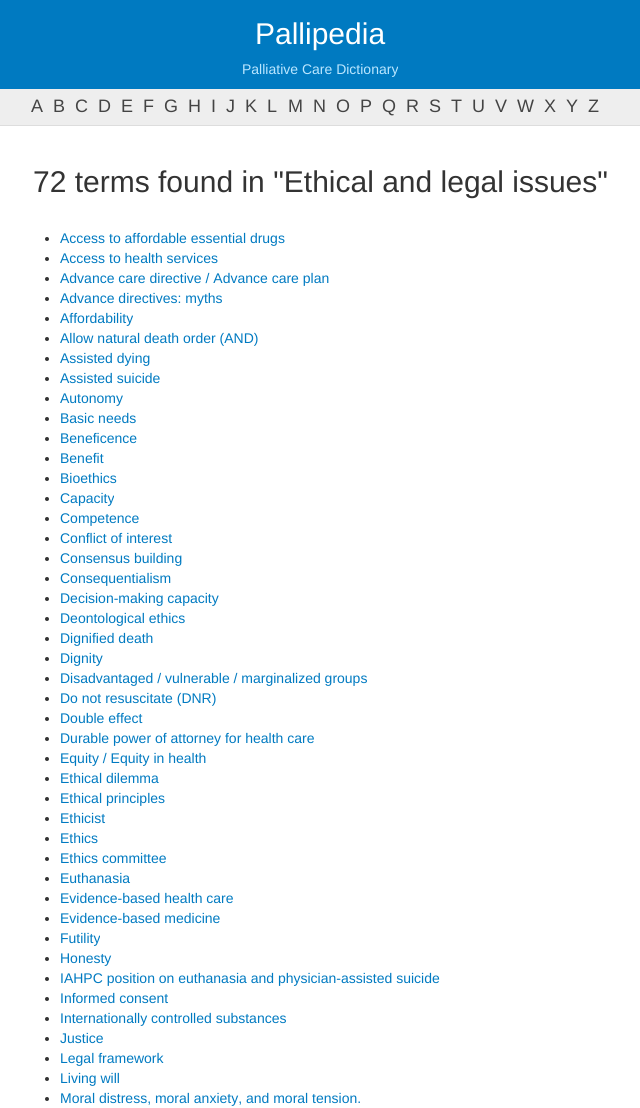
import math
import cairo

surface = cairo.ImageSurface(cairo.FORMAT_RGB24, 640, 1108)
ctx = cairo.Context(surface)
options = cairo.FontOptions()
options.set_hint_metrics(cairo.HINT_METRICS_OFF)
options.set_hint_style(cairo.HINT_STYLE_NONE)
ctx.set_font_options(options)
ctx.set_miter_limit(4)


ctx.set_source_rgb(1, 1, 1)
ctx.paint()
ctx.set_source_rgb(0, 0.478, 0.757)
ctx.rectangle(0, 0, 640, 89)
ctx.fill()
ctx.select_font_face("Liberation Sans")
ctx.set_font_size(30)
ctx.set_source_rgb(1, 1, 1)
ctx.move_to(255, 44)
ctx.show_text("Pallipedia")
ctx.set_font_size(14)
ctx.set_source_rgb(0.729, 0.902, 1)
ctx.move_to(242, 74)
ctx.show_text("Palliative Care Dictionary")
ctx.set_source_rgb(0.933, 0.933, 0.933)
ctx.rectangle(0, 89, 640, 36)
ctx.fill()
ctx.set_source_rgb(0.867, 0.867, 0.867)
ctx.rectangle(0, 125, 640, 1)
ctx.fill()
ctx.set_font_size(18)
ctx.set_source_rgb(0.267, 0.267, 0.267)
ctx.move_to(31, 112)
ctx.show_text("A")
ctx.move_to(53, 112)
ctx.show_text("B")
ctx.move_to(75, 112)
ctx.show_text("C")
ctx.move_to(98, 112)
ctx.show_text("D")
ctx.move_to(121, 112)
ctx.show_text("E")
ctx.move_to(143, 112)
ctx.show_text("F")
ctx.move_to(164, 112)
ctx.show_text("G")
ctx.move_to(188, 112)
ctx.show_text("H")
ctx.move_to(211, 112)
ctx.show_text("I")
ctx.move_to(226, 112)
ctx.show_text("J")
ctx.move_to(245, 112)
ctx.show_text("K")
ctx.move_to(267, 112)
ctx.show_text("L")
ctx.move_to(288, 112)
ctx.show_text("M")
ctx.move_to(313, 112)
ctx.show_text("N")
ctx.move_to(336, 112)
ctx.show_text("O")
ctx.move_to(360, 112)
ctx.show_text("P")
ctx.move_to(382, 112)
ctx.show_text("Q")
ctx.move_to(406, 112)
ctx.show_text("R")
ctx.move_to(429, 112)
ctx.show_text("S")
ctx.move_to(451, 112)
ctx.show_text("T")
ctx.move_to(472, 112)
ctx.show_text("U")
ctx.move_to(495, 112)
ctx.show_text("V")
ctx.move_to(517, 112)
ctx.show_text("W")
ctx.move_to(544, 112)
ctx.show_text("X")
ctx.move_to(566, 112)
ctx.show_text("Y")
ctx.move_to(588, 112)
ctx.show_text("Z")
ctx.set_font_size(30)
ctx.set_source_rgb(0.2, 0.2, 0.2)
ctx.move_to(33, 192)
ctx.show_text("72 terms found in \"Ethical and legal issues\"")
ctx.new_path()
ctx.arc(47, 239, 2, 0, 2 * math.pi)
ctx.fill()
ctx.set_font_size(14)
ctx.set_source_rgb(0, 0.478, 0.757)
ctx.move_to(60, 243)
ctx.show_text("Access to affordable essential drugs")
ctx.set_source_rgb(0.2, 0.2, 0.2)
ctx.new_path()
ctx.arc(47, 259, 2, 0, 2 * math.pi)
ctx.fill()
ctx.set_source_rgb(0, 0.478, 0.757)
ctx.move_to(60, 263)
ctx.show_text("Access to health services")
ctx.set_source_rgb(0.2, 0.2, 0.2)
ctx.new_path()
ctx.arc(47, 279, 2, 0, 2 * math.pi)
ctx.fill()
ctx.set_source_rgb(0, 0.478, 0.757)
ctx.move_to(60, 283)
ctx.show_text("Advance care directive / Advance care plan")
ctx.set_source_rgb(0.2, 0.2, 0.2)
ctx.new_path()
ctx.arc(47, 299, 2, 0, 2 * math.pi)
ctx.fill()
ctx.set_source_rgb(0, 0.478, 0.757)
ctx.move_to(60, 303)
ctx.show_text("Advance directives: myths")
ctx.set_source_rgb(0.2, 0.2, 0.2)
ctx.new_path()
ctx.arc(47, 319, 2, 0, 2 * math.pi)
ctx.fill()
ctx.set_source_rgb(0, 0.478, 0.757)
ctx.move_to(60, 323)
ctx.show_text("Affordability")
ctx.set_source_rgb(0.2, 0.2, 0.2)
ctx.new_path()
ctx.arc(47, 339, 2, 0, 2 * math.pi)
ctx.fill()
ctx.set_source_rgb(0, 0.478, 0.757)
ctx.move_to(60, 343)
ctx.show_text("Allow natural death order (AND)")
ctx.set_source_rgb(0.2, 0.2, 0.2)
ctx.new_path()
ctx.arc(47, 359, 2, 0, 2 * math.pi)
ctx.fill()
ctx.set_source_rgb(0, 0.478, 0.757)
ctx.move_to(60, 363)
ctx.show_text("Assisted dying")
ctx.set_source_rgb(0.2, 0.2, 0.2)
ctx.new_path()
ctx.arc(47, 379, 2, 0, 2 * math.pi)
ctx.fill()
ctx.set_source_rgb(0, 0.478, 0.757)
ctx.move_to(60, 383)
ctx.show_text("Assisted suicide")
ctx.set_source_rgb(0.2, 0.2, 0.2)
ctx.new_path()
ctx.arc(47, 399, 2, 0, 2 * math.pi)
ctx.fill()
ctx.set_source_rgb(0, 0.478, 0.757)
ctx.move_to(60, 403)
ctx.show_text("Autonomy")
ctx.set_source_rgb(0.2, 0.2, 0.2)
ctx.new_path()
ctx.arc(47, 419, 2, 0, 2 * math.pi)
ctx.fill()
ctx.set_source_rgb(0, 0.478, 0.757)
ctx.move_to(60, 423)
ctx.show_text("Basic needs")
ctx.set_source_rgb(0.2, 0.2, 0.2)
ctx.new_path()
ctx.arc(47, 439, 2, 0, 2 * math.pi)
ctx.fill()
ctx.set_source_rgb(0, 0.478, 0.757)
ctx.move_to(60, 443)
ctx.show_text("Beneficence")
ctx.set_source_rgb(0.2, 0.2, 0.2)
ctx.new_path()
ctx.arc(47, 459, 2, 0, 2 * math.pi)
ctx.fill()
ctx.set_source_rgb(0, 0.478, 0.757)
ctx.move_to(60, 463)
ctx.show_text("Benefit")
ctx.set_source_rgb(0.2, 0.2, 0.2)
ctx.new_path()
ctx.arc(47, 479, 2, 0, 2 * math.pi)
ctx.fill()
ctx.set_source_rgb(0, 0.478, 0.757)
ctx.move_to(60, 483)
ctx.show_text("Bioethics")
ctx.set_source_rgb(0.2, 0.2, 0.2)
ctx.new_path()
ctx.arc(47, 499, 2, 0, 2 * math.pi)
ctx.fill()
ctx.set_source_rgb(0, 0.478, 0.757)
ctx.move_to(60, 503)
ctx.show_text("Capacity")
ctx.set_source_rgb(0.2, 0.2, 0.2)
ctx.new_path()
ctx.arc(47, 519, 2, 0, 2 * math.pi)
ctx.fill()
ctx.set_source_rgb(0, 0.478, 0.757)
ctx.move_to(60, 523)
ctx.show_text("Competence")
ctx.set_source_rgb(0.2, 0.2, 0.2)
ctx.new_path()
ctx.arc(47, 539, 2, 0, 2 * math.pi)
ctx.fill()
ctx.set_source_rgb(0, 0.478, 0.757)
ctx.move_to(60, 543)
ctx.show_text("Conflict of interest")
ctx.set_source_rgb(0.2, 0.2, 0.2)
ctx.new_path()
ctx.arc(47, 559, 2, 0, 2 * math.pi)
ctx.fill()
ctx.set_source_rgb(0, 0.478, 0.757)
ctx.move_to(60, 563)
ctx.show_text("Consensus building")
ctx.set_source_rgb(0.2, 0.2, 0.2)
ctx.new_path()
ctx.arc(47, 579, 2, 0, 2 * math.pi)
ctx.fill()
ctx.set_source_rgb(0, 0.478, 0.757)
ctx.move_to(60, 583)
ctx.show_text("Consequentialism")
ctx.set_source_rgb(0.2, 0.2, 0.2)
ctx.new_path()
ctx.arc(47, 599, 2, 0, 2 * math.pi)
ctx.fill()
ctx.set_source_rgb(0, 0.478, 0.757)
ctx.move_to(60, 603)
ctx.show_text("Decision-making capacity")
ctx.set_source_rgb(0.2, 0.2, 0.2)
ctx.new_path()
ctx.arc(47, 619, 2, 0, 2 * math.pi)
ctx.fill()
ctx.set_source_rgb(0, 0.478, 0.757)
ctx.move_to(60, 623)
ctx.show_text("Deontological ethics")
ctx.set_source_rgb(0.2, 0.2, 0.2)
ctx.new_path()
ctx.arc(47, 639, 2, 0, 2 * math.pi)
ctx.fill()
ctx.set_source_rgb(0, 0.478, 0.757)
ctx.move_to(60, 643)
ctx.show_text("Dignified death")
ctx.set_source_rgb(0.2, 0.2, 0.2)
ctx.new_path()
ctx.arc(47, 659, 2, 0, 2 * math.pi)
ctx.fill()
ctx.set_source_rgb(0, 0.478, 0.757)
ctx.move_to(60, 663)
ctx.show_text("Dignity")
ctx.set_source_rgb(0.2, 0.2, 0.2)
ctx.new_path()
ctx.arc(47, 679, 2, 0, 2 * math.pi)
ctx.fill()
ctx.set_source_rgb(0, 0.478, 0.757)
ctx.move_to(60, 683)
ctx.show_text("Disadvantaged / vulnerable / marginalized groups")
ctx.set_source_rgb(0.2, 0.2, 0.2)
ctx.new_path()
ctx.arc(47, 699, 2, 0, 2 * math.pi)
ctx.fill()
ctx.set_source_rgb(0, 0.478, 0.757)
ctx.move_to(60, 703)
ctx.show_text("Do not resuscitate (DNR)")
ctx.set_source_rgb(0.2, 0.2, 0.2)
ctx.new_path()
ctx.arc(47, 719, 2, 0, 2 * math.pi)
ctx.fill()
ctx.set_source_rgb(0, 0.478, 0.757)
ctx.move_to(60, 723)
ctx.show_text("Double effect")
ctx.set_source_rgb(0.2, 0.2, 0.2)
ctx.new_path()
ctx.arc(47, 739, 2, 0, 2 * math.pi)
ctx.fill()
ctx.set_source_rgb(0, 0.478, 0.757)
ctx.move_to(60, 743)
ctx.show_text("Durable power of attorney for health care")
ctx.set_source_rgb(0.2, 0.2, 0.2)
ctx.new_path()
ctx.arc(47, 759, 2, 0, 2 * math.pi)
ctx.fill()
ctx.set_source_rgb(0, 0.478, 0.757)
ctx.move_to(60, 763)
ctx.show_text("Equity / Equity in health")
ctx.set_source_rgb(0.2, 0.2, 0.2)
ctx.new_path()
ctx.arc(47, 779, 2, 0, 2 * math.pi)
ctx.fill()
ctx.set_source_rgb(0, 0.478, 0.757)
ctx.move_to(60, 783)
ctx.show_text("Ethical dilemma")
ctx.set_source_rgb(0.2, 0.2, 0.2)
ctx.new_path()
ctx.arc(47, 799, 2, 0, 2 * math.pi)
ctx.fill()
ctx.set_source_rgb(0, 0.478, 0.757)
ctx.move_to(60, 803)
ctx.show_text("Ethical principles")
ctx.set_source_rgb(0.2, 0.2, 0.2)
ctx.new_path()
ctx.arc(47, 819, 2, 0, 2 * math.pi)
ctx.fill()
ctx.set_source_rgb(0, 0.478, 0.757)
ctx.move_to(60, 823)
ctx.show_text("Ethicist")
ctx.set_source_rgb(0.2, 0.2, 0.2)
ctx.new_path()
ctx.arc(47, 839, 2, 0, 2 * math.pi)
ctx.fill()
ctx.set_source_rgb(0, 0.478, 0.757)
ctx.move_to(60, 843)
ctx.show_text("Ethics")
ctx.set_source_rgb(0.2, 0.2, 0.2)
ctx.new_path()
ctx.arc(47, 859, 2, 0, 2 * math.pi)
ctx.fill()
ctx.set_source_rgb(0, 0.478, 0.757)
ctx.move_to(60, 863)
ctx.show_text("Ethics committee")
ctx.set_source_rgb(0.2, 0.2, 0.2)
ctx.new_path()
ctx.arc(47, 879, 2, 0, 2 * math.pi)
ctx.fill()
ctx.set_source_rgb(0, 0.478, 0.757)
ctx.move_to(60, 883)
ctx.show_text("Euthanasia")
ctx.set_source_rgb(0.2, 0.2, 0.2)
ctx.new_path()
ctx.arc(47, 899, 2, 0, 2 * math.pi)
ctx.fill()
ctx.set_source_rgb(0, 0.478, 0.757)
ctx.move_to(60, 903)
ctx.show_text("Evidence-based health care")
ctx.set_source_rgb(0.2, 0.2, 0.2)
ctx.new_path()
ctx.arc(47, 919, 2, 0, 2 * math.pi)
ctx.fill()
ctx.set_source_rgb(0, 0.478, 0.757)
ctx.move_to(60, 923)
ctx.show_text("Evidence-based medicine")
ctx.set_source_rgb(0.2, 0.2, 0.2)
ctx.new_path()
ctx.arc(47, 939, 2, 0, 2 * math.pi)
ctx.fill()
ctx.set_source_rgb(0, 0.478, 0.757)
ctx.move_to(60, 943)
ctx.show_text("Futility")
ctx.set_source_rgb(0.2, 0.2, 0.2)
ctx.new_path()
ctx.arc(47, 959, 2, 0, 2 * math.pi)
ctx.fill()
ctx.set_source_rgb(0, 0.478, 0.757)
ctx.move_to(60, 963)
ctx.show_text("Honesty")
ctx.set_source_rgb(0.2, 0.2, 0.2)
ctx.new_path()
ctx.arc(47, 979, 2, 0, 2 * math.pi)
ctx.fill()
ctx.set_source_rgb(0, 0.478, 0.757)
ctx.move_to(60, 983)
ctx.show_text("IAHPC position on euthanasia and physician-assisted suicide")
ctx.set_source_rgb(0.2, 0.2, 0.2)
ctx.new_path()
ctx.arc(47, 999, 2, 0, 2 * math.pi)
ctx.fill()
ctx.set_source_rgb(0, 0.478, 0.757)
ctx.move_to(60, 1003)
ctx.show_text("Informed consent")
ctx.set_source_rgb(0.2, 0.2, 0.2)
ctx.new_path()
ctx.arc(47, 1019, 2, 0, 2 * math.pi)
ctx.fill()
ctx.set_source_rgb(0, 0.478, 0.757)
ctx.move_to(60, 1023)
ctx.show_text("Internationally controlled substances")
ctx.set_source_rgb(0.2, 0.2, 0.2)
ctx.new_path()
ctx.arc(47, 1039, 2, 0, 2 * math.pi)
ctx.fill()
ctx.set_source_rgb(0, 0.478, 0.757)
ctx.move_to(60, 1043)
ctx.show_text("Justice")
ctx.set_source_rgb(0.2, 0.2, 0.2)
ctx.new_path()
ctx.arc(47, 1059, 2, 0, 2 * math.pi)
ctx.fill()
ctx.set_source_rgb(0, 0.478, 0.757)
ctx.move_to(60, 1063)
ctx.show_text("Legal framework")
ctx.set_source_rgb(0.2, 0.2, 0.2)
ctx.new_path()
ctx.arc(47, 1079, 2, 0, 2 * math.pi)
ctx.fill()
ctx.set_source_rgb(0, 0.478, 0.757)
ctx.move_to(60, 1083)
ctx.show_text("Living will")
ctx.set_source_rgb(0.2, 0.2, 0.2)
ctx.new_path()
ctx.arc(47, 1099, 2, 0, 2 * math.pi)
ctx.fill()
ctx.set_source_rgb(0, 0.478, 0.757)
ctx.move_to(60, 1103)
ctx.show_text("Moral distress, moral anxiety, and moral tension.")
surface.write_to_png("page.png")
